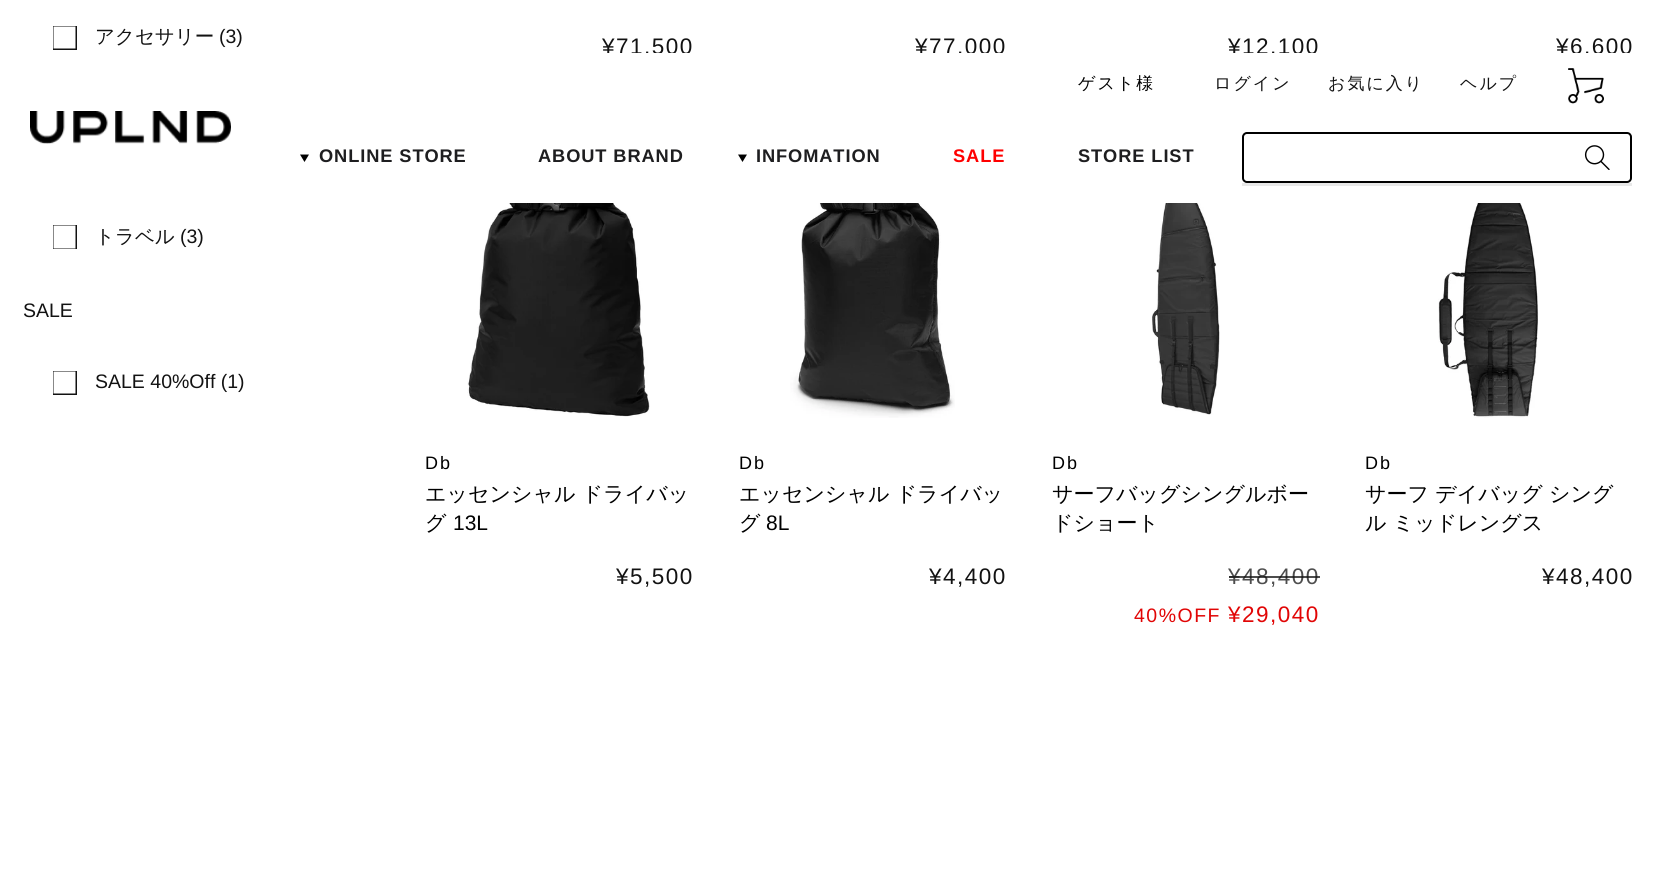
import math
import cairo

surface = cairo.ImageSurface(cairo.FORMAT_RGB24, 1655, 882)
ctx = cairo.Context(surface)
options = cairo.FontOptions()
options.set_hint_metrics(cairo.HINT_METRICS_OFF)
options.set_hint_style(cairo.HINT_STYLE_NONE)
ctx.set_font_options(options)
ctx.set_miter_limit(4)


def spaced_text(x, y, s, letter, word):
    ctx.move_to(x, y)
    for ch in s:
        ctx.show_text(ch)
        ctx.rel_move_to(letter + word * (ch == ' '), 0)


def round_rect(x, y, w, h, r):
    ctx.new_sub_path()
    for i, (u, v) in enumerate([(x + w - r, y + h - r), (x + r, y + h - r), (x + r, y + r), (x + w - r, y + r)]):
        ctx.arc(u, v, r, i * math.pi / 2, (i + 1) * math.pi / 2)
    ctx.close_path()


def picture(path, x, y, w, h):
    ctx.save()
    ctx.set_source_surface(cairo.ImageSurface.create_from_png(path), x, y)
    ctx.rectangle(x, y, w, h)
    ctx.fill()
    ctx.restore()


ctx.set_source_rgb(1, 1, 1)
ctx.paint()
ctx.save()
ctx.rectangle(53, 26, 24, 24)
ctx.clip()
ctx.rectangle(52.75, 25.75, 23.5, 23.5)
ctx.set_source_rgb(0.071, 0.071, 0.071)
ctx.set_line_width(1.5)
ctx.stroke()
ctx.restore()
ctx.select_font_face("WenQuanYi Zen Hei Medium")
ctx.set_font_size(19.5)
ctx.set_source_rgb(0.071, 0.071, 0.071)
ctx.move_to(95, 43)
ctx.show_text("アクセサリー")
ctx.select_font_face("Liberation Sans")
ctx.move_to(219, 43)
ctx.show_text("(3)")
ctx.save()
ctx.rectangle(53, 225, 24, 24)
ctx.clip()
ctx.rectangle(52.75, 224.75, 23.5, 24.5)
ctx.set_line_width(1.5)
ctx.stroke()
ctx.restore()
ctx.select_font_face("WenQuanYi Zen Hei Medium")
ctx.move_to(95, 243)
ctx.show_text("トラベル")
ctx.select_font_face("Liberation Sans")
ctx.move_to(180, 243)
ctx.show_text("(3)")
ctx.move_to(23, 317)
ctx.show_text("SALE")
ctx.save()
ctx.rectangle(53, 371, 24, 24)
ctx.clip()
ctx.rectangle(52.75, 370.75, 23.5, 23.5)
ctx.set_line_width(1.5)
ctx.stroke()
ctx.restore()
ctx.move_to(95, 388)
ctx.show_text("SALE 40%Off (1)")
ctx.set_font_size(22.5)
spaced_text(602, 54, "¥71,500", 1.5, 0)
spaced_text(915, 54, "¥77,000", 1.5, 0)
spaced_text(1228, 54, "¥12,100", 1.5, 0)
spaced_text(1556, 54, "¥6,600", 1.5, 0)
picture("img1.png", 467, 203, 183, 214)
ctx.set_font_size(18)
ctx.set_source_rgb(0, 0, 0)
spaced_text(425, 469, "Db", 2, 0)
ctx.select_font_face("WenQuanYi Zen Hei Medium")
ctx.set_font_size(21)
ctx.move_to(425, 501)
ctx.show_text("エッセンシャル ドライバッ")
ctx.move_to(425, 530)
ctx.show_text("グ")
ctx.select_font_face("Liberation Sans")
ctx.move_to(453, 530)
ctx.show_text("13L")
ctx.set_font_size(22.5)
ctx.set_source_rgb(0.071, 0.071, 0.071)
spaced_text(616, 584, "¥5,500", 1.5, 0)
picture("img2.png", 790, 203, 165, 215)
ctx.set_font_size(18)
ctx.set_source_rgb(0, 0, 0)
spaced_text(739, 469, "Db", 2, 0)
ctx.select_font_face("WenQuanYi Zen Hei Medium")
ctx.set_font_size(21)
ctx.move_to(739, 501)
ctx.show_text("エッセンシャル ドライバッ")
ctx.move_to(739, 530)
ctx.show_text("グ")
ctx.select_font_face("Liberation Sans")
ctx.move_to(766, 530)
ctx.show_text("8L")
ctx.set_font_size(22.5)
ctx.set_source_rgb(0.071, 0.071, 0.071)
spaced_text(929, 584, "¥4,400", 1.5, 0)
picture("img3.png", 1152, 203, 68, 212)
ctx.set_font_size(18)
ctx.set_source_rgb(0, 0, 0)
spaced_text(1052, 469, "Db", 2, 0)
ctx.select_font_face("WenQuanYi Zen Hei Medium")
ctx.set_font_size(21)
ctx.move_to(1052, 501)
ctx.show_text("サーフバッグシングルボー")
ctx.move_to(1052, 530)
ctx.show_text("ドショート")
ctx.select_font_face("Liberation Sans")
ctx.set_font_size(22.5)
ctx.set_source_rgb(0.302, 0.302, 0.302)
spaced_text(1228, 584, "¥48,400", 1.5, 0)
ctx.set_source_rgba(0.071, 0.071, 0.071, 0.75)
ctx.rectangle(1229, 576, 91, 2)
ctx.fill()
ctx.set_font_size(19.5)
ctx.set_source_rgb(0.882, 0.02, 0.02)
spaced_text(1134, 622, "40%OFF", 1.5, 0)
ctx.set_font_size(22.5)
spaced_text(1228, 622, "¥29,040", 1.5, 0)
picture("img4.png", 1438, 203, 101, 215)
ctx.set_font_size(18)
ctx.set_source_rgb(0, 0, 0)
spaced_text(1365, 469, "Db", 2, 0)
ctx.select_font_face("WenQuanYi Zen Hei Medium")
ctx.set_font_size(21)
ctx.move_to(1365, 501)
ctx.show_text("サーフ デイバッグ シング")
ctx.move_to(1365, 530)
ctx.show_text("ル ミッドレングス")
ctx.select_font_face("Liberation Sans")
ctx.set_font_size(22.5)
ctx.set_source_rgb(0.071, 0.071, 0.071)
spaced_text(1542, 584, "¥48,400", 1.5, 0)
ctx.set_source_rgb(1, 1, 1)
ctx.rectangle(606, 53, 1023, 4)
ctx.fill()
picture("img5.png", 30, 111, 201, 33)
ctx.select_font_face("WenQuanYi Zen Hei Medium")
ctx.set_font_size(17)
ctx.set_source_rgb(0, 0, 0)
spaced_text(1078, 89, "ゲスト様", 2, 0)
ctx.set_source_rgb(0.071, 0.071, 0.071)
spaced_text(1214, 89, "ログイン", 2, 0)
spaced_text(1328, 89, "お気に入り", 2, 0)
spaced_text(1460, 89, "ヘルプ", 2, 0)
picture("img6.png", 1568, 68, 36, 36)
ctx.set_source_rgb(0, 0, 0)
ctx.new_path()
ctx.move_to(300, 154.5)
ctx.line_to(309, 154.5)
ctx.line_to(304.5, 162)
ctx.close_path()
ctx.fill()
ctx.select_font_face("Liberation Sans", cairo.FONT_SLANT_NORMAL, cairo.FONT_WEIGHT_BOLD)
ctx.set_font_size(18.25)
ctx.set_source_rgb(0.118, 0.118, 0.125)
spaced_text(319, 162, "ONLINE STORE", 0.9, 0)
spaced_text(538, 162, "ABOUT BRAND", 0.9, 0)
ctx.set_source_rgb(0, 0, 0)
ctx.new_path()
ctx.move_to(738, 154.5)
ctx.line_to(747, 154.5)
ctx.line_to(742.5, 162)
ctx.close_path()
ctx.fill()
ctx.set_source_rgb(0.118, 0.118, 0.125)
spaced_text(756, 162, "INFOMATION", 0.9, 0)
ctx.set_source_rgb(1, 0, 0)
spaced_text(953, 162, "SALE", 0.9, 0)
ctx.set_source_rgb(0.118, 0.118, 0.125)
spaced_text(1078, 162, "STORE LIST", 0.9, 0)
round_rect(1243, 133, 388, 49, 4)
ctx.set_source_rgb(0, 0, 0)
ctx.stroke()
picture("img7.png", 1584, 145, 26, 25)
ctx.set_source_rgb(0.91, 0.91, 0.91)
ctx.rectangle(1242, 183, 390, 3)
ctx.fill()
surface.write_to_png("page.png")
